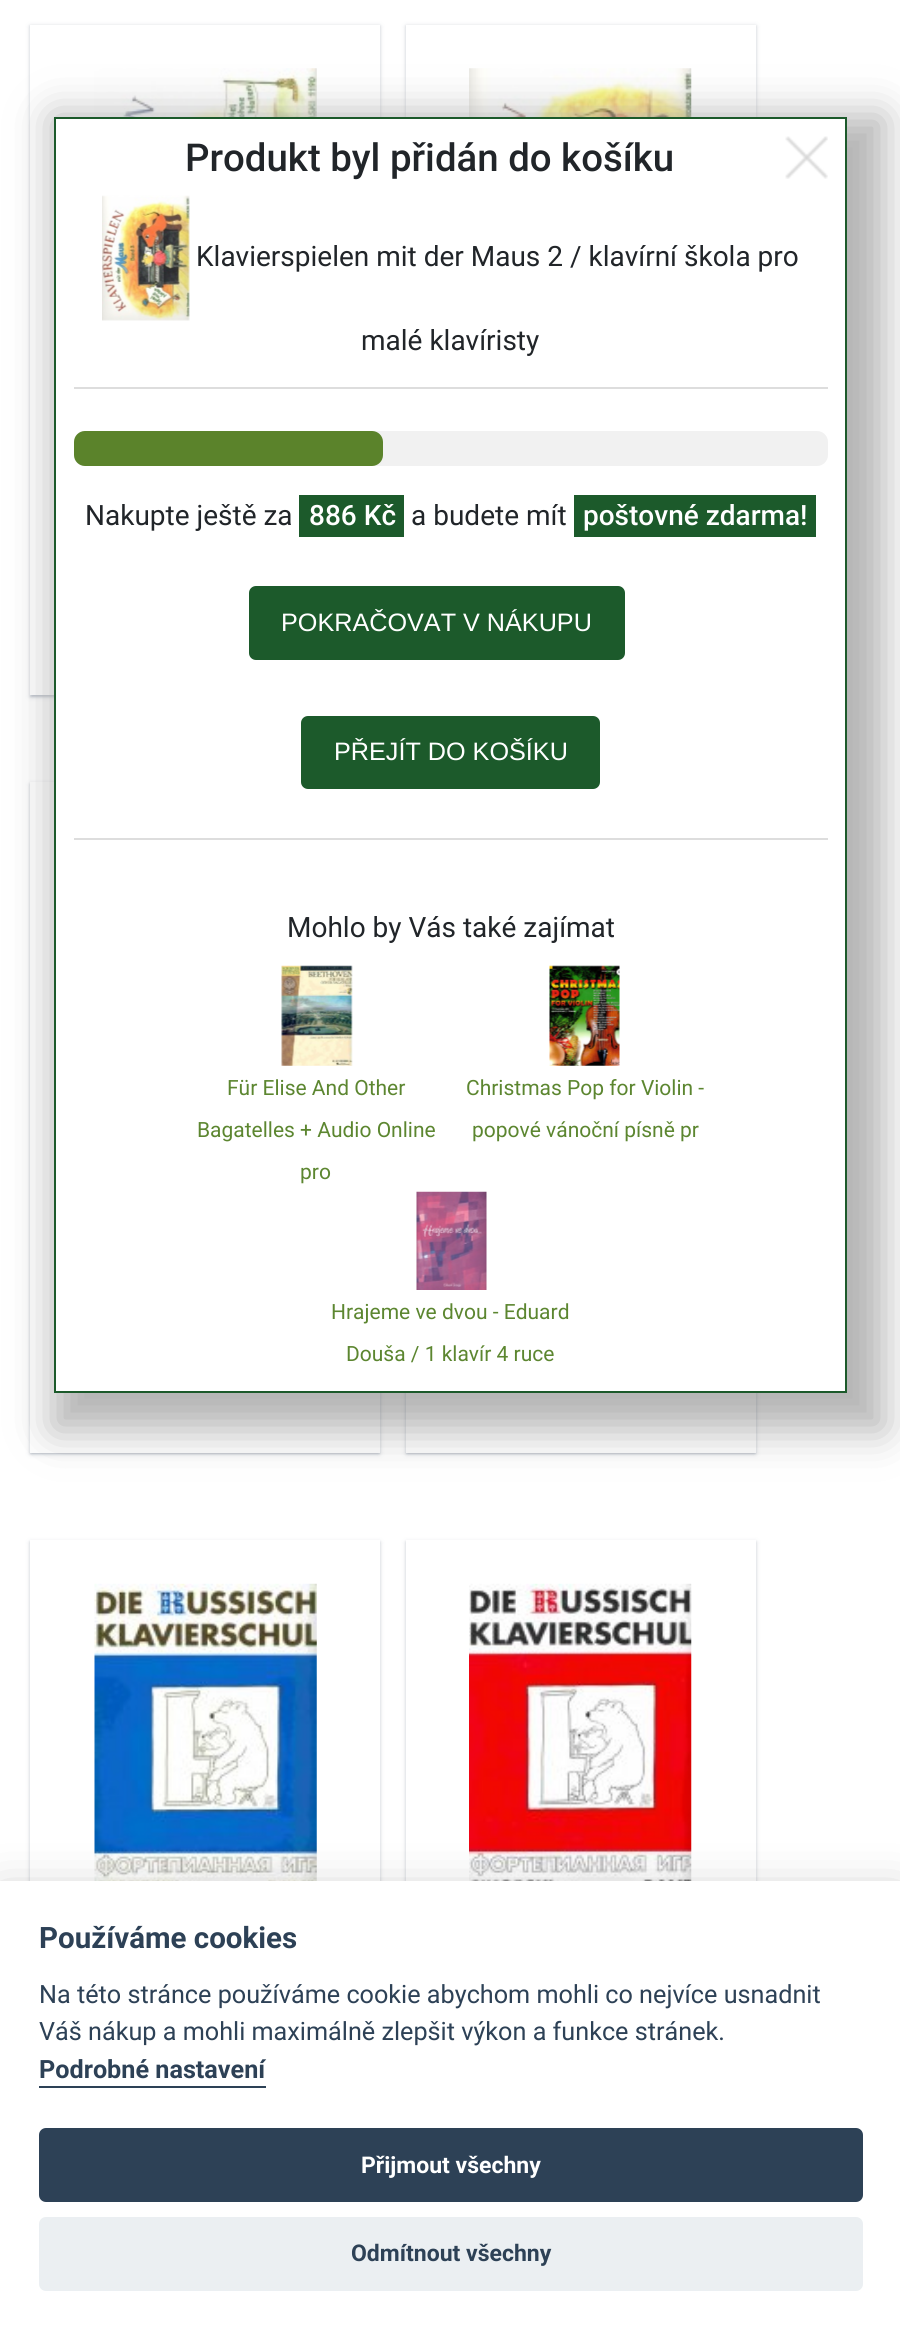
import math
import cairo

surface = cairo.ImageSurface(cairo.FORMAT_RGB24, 900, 2328)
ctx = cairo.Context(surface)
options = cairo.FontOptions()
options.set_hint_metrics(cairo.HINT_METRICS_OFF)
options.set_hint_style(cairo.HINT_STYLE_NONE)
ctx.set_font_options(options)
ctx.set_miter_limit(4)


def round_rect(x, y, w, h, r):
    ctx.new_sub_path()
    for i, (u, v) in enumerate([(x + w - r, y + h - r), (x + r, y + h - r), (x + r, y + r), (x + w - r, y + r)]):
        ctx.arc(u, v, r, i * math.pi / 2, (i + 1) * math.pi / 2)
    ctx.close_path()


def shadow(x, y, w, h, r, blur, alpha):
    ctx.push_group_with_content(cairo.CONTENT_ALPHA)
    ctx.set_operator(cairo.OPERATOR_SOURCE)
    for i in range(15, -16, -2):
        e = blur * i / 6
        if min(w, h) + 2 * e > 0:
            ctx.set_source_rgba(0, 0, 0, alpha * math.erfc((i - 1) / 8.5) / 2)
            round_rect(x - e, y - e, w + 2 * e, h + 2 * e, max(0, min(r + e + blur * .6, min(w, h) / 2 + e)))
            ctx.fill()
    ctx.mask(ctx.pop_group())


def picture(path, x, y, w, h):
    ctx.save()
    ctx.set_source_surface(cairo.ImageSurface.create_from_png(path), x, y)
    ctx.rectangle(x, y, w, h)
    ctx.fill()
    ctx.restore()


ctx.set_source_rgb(1, 1, 1)
ctx.paint()
ctx.save()
ctx.set_fill_rule(cairo.FILL_RULE_EVEN_ODD)
ctx.new_path()
ctx.move_to(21, 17)
ctx.line_to(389, 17)
ctx.line_to(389, 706)
ctx.line_to(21, 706)
ctx.close_path()
ctx.move_to(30, 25)
ctx.line_to(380, 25)
ctx.line_to(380, 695)
ctx.line_to(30, 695)
ctx.close_path()
ctx.clip()
ctx.set_source_rgb(0.235, 0.294, 0.392)
shadow(30, 26, 350, 671, 0, 2.5, 0.2)
ctx.restore()
ctx.save()
ctx.set_fill_rule(cairo.FILL_RULE_EVEN_ODD)
ctx.new_path()
ctx.move_to(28, 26)
ctx.line_to(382, 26)
ctx.line_to(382, 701)
ctx.line_to(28, 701)
ctx.close_path()
ctx.move_to(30, 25)
ctx.line_to(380, 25)
ctx.line_to(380, 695)
ctx.line_to(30, 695)
ctx.close_path()
ctx.clip()
ctx.set_source_rgb(0.235, 0.294, 0.392)
shadow(32, 30, 346, 667, 0, 1, 0.12)
ctx.restore()
ctx.save()
ctx.set_fill_rule(cairo.FILL_RULE_EVEN_ODD)
ctx.new_path()
ctx.move_to(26, 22)
ctx.line_to(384, 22)
ctx.line_to(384, 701)
ctx.line_to(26, 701)
ctx.close_path()
ctx.move_to(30, 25)
ctx.line_to(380, 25)
ctx.line_to(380, 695)
ctx.line_to(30, 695)
ctx.close_path()
ctx.clip()
ctx.set_source_rgb(0.235, 0.294, 0.392)
shadow(30, 26, 350, 671, 0, 1, 0.14)
ctx.restore()
picture("img1.png", 94, 68, 223, 49)
ctx.save()
ctx.set_fill_rule(cairo.FILL_RULE_EVEN_ODD)
ctx.new_path()
ctx.move_to(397, 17)
ctx.line_to(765, 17)
ctx.line_to(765, 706)
ctx.line_to(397, 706)
ctx.close_path()
ctx.move_to(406, 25)
ctx.line_to(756, 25)
ctx.line_to(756, 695)
ctx.line_to(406, 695)
ctx.close_path()
ctx.clip()
ctx.set_source_rgb(0.235, 0.294, 0.392)
shadow(406, 26, 350, 671, 0, 2.5, 0.2)
ctx.restore()
ctx.save()
ctx.set_fill_rule(cairo.FILL_RULE_EVEN_ODD)
ctx.new_path()
ctx.move_to(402, 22)
ctx.line_to(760, 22)
ctx.line_to(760, 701)
ctx.line_to(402, 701)
ctx.close_path()
ctx.move_to(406, 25)
ctx.line_to(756, 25)
ctx.line_to(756, 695)
ctx.line_to(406, 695)
ctx.close_path()
ctx.clip()
ctx.set_source_rgb(0.235, 0.294, 0.392)
shadow(406, 26, 350, 671, 0, 1, 0.14)
ctx.restore()
picture("img2.png", 469, 68, 223, 49)
ctx.set_source_rgb(0.702, 0.702, 0.702)
shadow(53, 116, 831, 1314, 0, 21, 1)
ctx.save()
ctx.set_fill_rule(cairo.FILL_RULE_EVEN_ODD)
ctx.new_path()
ctx.move_to(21, 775)
ctx.line_to(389, 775)
ctx.line_to(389, 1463)
ctx.line_to(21, 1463)
ctx.close_path()
ctx.move_to(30, 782)
ctx.line_to(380, 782)
ctx.line_to(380, 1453)
ctx.line_to(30, 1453)
ctx.close_path()
ctx.clip()
ctx.set_source_rgb(0.235, 0.294, 0.392)
shadow(30, 784, 350, 670, 0, 2.5, 0.2)
ctx.restore()
ctx.save()
ctx.set_fill_rule(cairo.FILL_RULE_EVEN_ODD)
ctx.new_path()
ctx.move_to(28, 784)
ctx.line_to(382, 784)
ctx.line_to(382, 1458)
ctx.line_to(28, 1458)
ctx.close_path()
ctx.move_to(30, 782)
ctx.line_to(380, 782)
ctx.line_to(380, 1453)
ctx.line_to(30, 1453)
ctx.close_path()
ctx.clip()
ctx.set_source_rgb(0.235, 0.294, 0.392)
shadow(32, 788, 346, 666, 0, 1, 0.12)
ctx.restore()
ctx.save()
ctx.set_fill_rule(cairo.FILL_RULE_EVEN_ODD)
ctx.new_path()
ctx.move_to(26, 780)
ctx.line_to(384, 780)
ctx.line_to(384, 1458)
ctx.line_to(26, 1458)
ctx.close_path()
ctx.move_to(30, 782)
ctx.line_to(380, 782)
ctx.line_to(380, 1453)
ctx.line_to(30, 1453)
ctx.close_path()
ctx.clip()
ctx.set_source_rgb(0.235, 0.294, 0.392)
shadow(30, 784, 350, 670, 0, 1, 0.14)
ctx.restore()
ctx.save()
ctx.set_fill_rule(cairo.FILL_RULE_EVEN_ODD)
ctx.new_path()
ctx.move_to(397, 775)
ctx.line_to(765, 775)
ctx.line_to(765, 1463)
ctx.line_to(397, 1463)
ctx.close_path()
ctx.move_to(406, 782)
ctx.line_to(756, 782)
ctx.line_to(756, 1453)
ctx.line_to(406, 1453)
ctx.close_path()
ctx.clip()
ctx.set_source_rgb(0.235, 0.294, 0.392)
shadow(406, 784, 350, 670, 0, 2.5, 0.2)
ctx.restore()
ctx.save()
ctx.set_fill_rule(cairo.FILL_RULE_EVEN_ODD)
ctx.new_path()
ctx.move_to(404, 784)
ctx.line_to(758, 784)
ctx.line_to(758, 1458)
ctx.line_to(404, 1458)
ctx.close_path()
ctx.move_to(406, 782)
ctx.line_to(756, 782)
ctx.line_to(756, 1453)
ctx.line_to(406, 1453)
ctx.close_path()
ctx.clip()
ctx.set_source_rgb(0.235, 0.294, 0.392)
shadow(408, 788, 346, 666, 0, 1, 0.12)
ctx.restore()
ctx.save()
ctx.set_fill_rule(cairo.FILL_RULE_EVEN_ODD)
ctx.new_path()
ctx.move_to(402, 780)
ctx.line_to(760, 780)
ctx.line_to(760, 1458)
ctx.line_to(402, 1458)
ctx.close_path()
ctx.move_to(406, 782)
ctx.line_to(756, 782)
ctx.line_to(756, 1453)
ctx.line_to(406, 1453)
ctx.close_path()
ctx.clip()
ctx.set_source_rgb(0.235, 0.294, 0.392)
shadow(406, 784, 350, 670, 0, 1, 0.14)
ctx.restore()
ctx.set_source_rgb(1, 1, 1)
ctx.rectangle(55, 118, 791, 1274)
ctx.fill_preserve()
ctx.set_source_rgb(0.11, 0.353, 0.169)
ctx.stroke()
ctx.select_font_face("Roboto Medium")
ctx.set_font_size(38.4)
ctx.set_source_rgb(0.129, 0.145, 0.161)
ctx.move_to(185, 171)
ctx.show_text("Produkt byl přidán do košíku")
picture("img3.png", 102, 195, 88, 126)
ctx.select_font_face("Roboto")
ctx.set_font_size(28)
ctx.move_to(196, 266)
ctx.show_text("Klavierspielen mit der Maus 2 / klavírní škola pro")
ctx.move_to(361, 350)
ctx.show_text("malé klavíristy")
ctx.set_source_rgb(0.867, 0.867, 0.867)
ctx.rectangle(74, 387, 754, 2)
ctx.fill()
ctx.set_source_rgb(0.945, 0.945, 0.945)
round_rect(74, 431, 754, 35, 11)
ctx.fill()
ctx.set_source_rgb(0.357, 0.514, 0.169)
round_rect(74, 431, 309, 35, 11)
ctx.fill()
ctx.set_source_rgb(0.129, 0.145, 0.161)
ctx.move_to(85, 525)
ctx.show_text("Nakupte ještě za")
ctx.set_source_rgb(0.11, 0.353, 0.169)
ctx.rectangle(299, 495, 105, 42)
ctx.fill()
ctx.select_font_face("Roboto Medium")
ctx.set_source_rgb(1, 1, 1)
ctx.move_to(309, 525)
ctx.show_text("886 Kč")
ctx.select_font_face("Roboto")
ctx.set_source_rgb(0.129, 0.145, 0.161)
ctx.move_to(411, 525)
ctx.show_text("a budete mít")
ctx.set_source_rgb(0.11, 0.353, 0.169)
ctx.rectangle(574, 495, 242, 42)
ctx.fill()
ctx.select_font_face("Roboto Medium")
ctx.set_source_rgb(1, 1, 1)
ctx.move_to(583, 525)
ctx.show_text("poštovné zdarma!")
ctx.set_source_rgb(0.11, 0.353, 0.169)
round_rect(250, 587, 374, 72, 6)
ctx.fill_preserve()
ctx.stroke()
ctx.select_font_face("Liberation Sans")
ctx.set_font_size(25.2)
ctx.set_source_rgb(1, 1, 1)
ctx.move_to(281, 631)
ctx.show_text("POKRAČOVAT V NÁKUPU")
ctx.set_source_rgb(0.11, 0.353, 0.169)
round_rect(302, 717, 297, 71, 6)
ctx.fill_preserve()
ctx.stroke()
ctx.set_source_rgb(1, 1, 1)
ctx.move_to(334, 760)
ctx.show_text("PŘEJÍT DO KOŠÍKU")
ctx.set_source_rgb(0.867, 0.867, 0.867)
ctx.rectangle(74, 838, 754, 2)
ctx.fill()
ctx.select_font_face("Roboto")
ctx.set_font_size(28)
ctx.set_source_rgb(0.129, 0.145, 0.161)
ctx.move_to(287, 937)
ctx.show_text("Mohlo by Vás také zajímat")
picture("img4.png", 281, 965, 72, 101)
ctx.set_font_size(21)
ctx.set_source_rgb(0.361, 0.525, 0.188)
ctx.move_to(227, 1095)
ctx.show_text("Für Elise And Other")
ctx.move_to(197, 1137)
ctx.show_text("Bagatelles + Audio Online")
ctx.move_to(300, 1179)
ctx.show_text("pro")
picture("img5.png", 549, 965, 71, 101)
ctx.move_to(466, 1095)
ctx.show_text("Christmas Pop for Violin -")
ctx.move_to(472, 1137)
ctx.show_text("popové vánoční písně pr")
picture("img6.png", 416, 1191, 71, 99)
ctx.move_to(331, 1319)
ctx.show_text("Hrajeme ve dvou - Eduard")
ctx.move_to(346, 1361)
ctx.show_text("Douša / 1 klavír 4 ruce")
picture("img7.png", 785, 136, 43, 43)
ctx.save()
ctx.set_fill_rule(cairo.FILL_RULE_EVEN_ODD)
ctx.new_path()
ctx.move_to(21, 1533)
ctx.line_to(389, 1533)
ctx.line_to(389, 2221)
ctx.line_to(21, 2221)
ctx.close_path()
ctx.move_to(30, 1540)
ctx.line_to(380, 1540)
ctx.line_to(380, 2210)
ctx.line_to(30, 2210)
ctx.close_path()
ctx.clip()
ctx.set_source_rgb(0.235, 0.294, 0.392)
shadow(30, 1542, 350, 670, 0, 2.5, 0.2)
ctx.restore()
ctx.save()
ctx.set_fill_rule(cairo.FILL_RULE_EVEN_ODD)
ctx.new_path()
ctx.move_to(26, 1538)
ctx.line_to(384, 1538)
ctx.line_to(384, 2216)
ctx.line_to(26, 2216)
ctx.close_path()
ctx.move_to(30, 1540)
ctx.line_to(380, 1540)
ctx.line_to(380, 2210)
ctx.line_to(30, 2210)
ctx.close_path()
ctx.clip()
ctx.set_source_rgb(0.235, 0.294, 0.392)
shadow(30, 1542, 350, 670, 0, 1, 0.14)
ctx.restore()
picture("img8.png", 94, 1583, 223, 298)
ctx.save()
ctx.set_fill_rule(cairo.FILL_RULE_EVEN_ODD)
ctx.new_path()
ctx.move_to(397, 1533)
ctx.line_to(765, 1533)
ctx.line_to(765, 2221)
ctx.line_to(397, 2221)
ctx.close_path()
ctx.move_to(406, 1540)
ctx.line_to(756, 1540)
ctx.line_to(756, 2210)
ctx.line_to(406, 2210)
ctx.close_path()
ctx.clip()
ctx.set_source_rgb(0.235, 0.294, 0.392)
shadow(406, 1542, 350, 670, 0, 2.5, 0.2)
ctx.restore()
ctx.save()
ctx.set_fill_rule(cairo.FILL_RULE_EVEN_ODD)
ctx.new_path()
ctx.move_to(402, 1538)
ctx.line_to(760, 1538)
ctx.line_to(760, 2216)
ctx.line_to(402, 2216)
ctx.close_path()
ctx.move_to(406, 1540)
ctx.line_to(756, 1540)
ctx.line_to(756, 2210)
ctx.line_to(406, 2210)
ctx.close_path()
ctx.clip()
ctx.set_source_rgb(0.235, 0.294, 0.392)
shadow(406, 1542, 350, 670, 0, 1, 0.14)
ctx.restore()
picture("img9.png", 469, 1583, 223, 298)
ctx.set_source_rgb(0.008, 0.008, 0.012)
shadow(0, 1899, 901, 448, 0, 26, 0.28)
ctx.set_source_rgb(1, 1, 1)
ctx.rectangle(0, 1881, 900, 447)
ctx.fill()
ctx.select_font_face("Roboto", cairo.FONT_SLANT_NORMAL, cairo.FONT_WEIGHT_BOLD)
ctx.set_font_size(29.5)
ctx.set_source_rgb(0.176, 0.255, 0.337)
ctx.move_to(39, 1948)
ctx.show_text("Používáme cookies")
ctx.select_font_face("Roboto")
ctx.set_font_size(25.2)
ctx.move_to(39, 2003)
ctx.show_text("Na této stránce používáme cookie abychom mohli co nejvíce usnadnit")
ctx.move_to(39, 2040)
ctx.show_text("Váš nákup a mohli maximálně zlepšit výkon a funkce stránek.")
ctx.select_font_face("Roboto", cairo.FONT_SLANT_NORMAL, cairo.FONT_WEIGHT_BOLD)
ctx.move_to(39, 2078)
ctx.show_text("Podrobné nastavení")
ctx.rectangle(39, 2086, 227, 2)
ctx.fill()
round_rect(39, 2128, 824, 74, 7)
ctx.fill()
ctx.set_font_size(23)
ctx.set_source_rgb(1, 1, 1)
ctx.move_to(361, 2173)
ctx.show_text("Přijmout všechny")
ctx.set_source_rgb(0.918, 0.937, 0.949)
round_rect(39, 2217, 824, 74, 7)
ctx.fill()
ctx.set_source_rgb(0.176, 0.255, 0.337)
ctx.move_to(351, 2261)
ctx.show_text("Odmítnout všechny")
surface.write_to_png("page.png")
